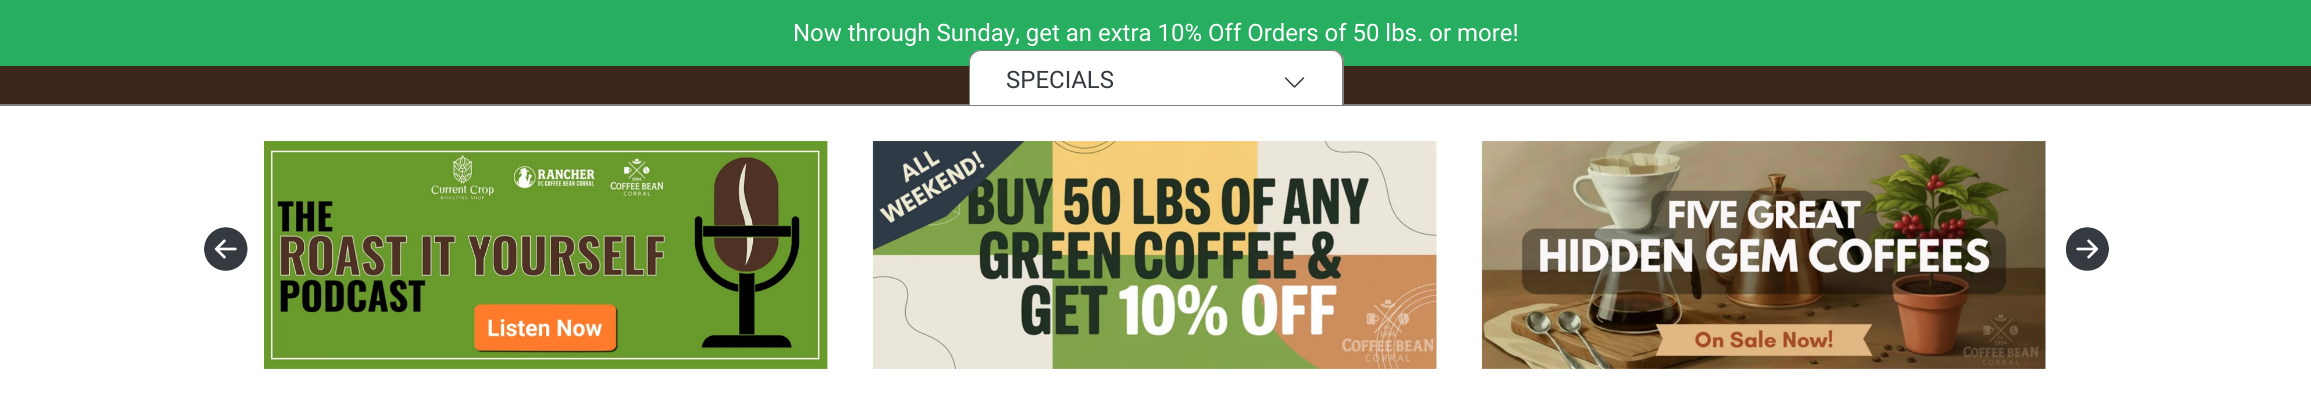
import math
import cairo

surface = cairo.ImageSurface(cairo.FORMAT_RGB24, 2311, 404)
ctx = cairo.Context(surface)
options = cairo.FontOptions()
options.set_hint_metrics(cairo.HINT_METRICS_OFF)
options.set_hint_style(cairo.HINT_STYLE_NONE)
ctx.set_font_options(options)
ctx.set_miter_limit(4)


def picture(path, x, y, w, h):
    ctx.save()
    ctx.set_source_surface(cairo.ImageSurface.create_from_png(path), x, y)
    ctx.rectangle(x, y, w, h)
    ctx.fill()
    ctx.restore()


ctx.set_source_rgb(0.231, 0.153, 0.102)
ctx.paint()
ctx.set_source_rgb(0.153, 0.682, 0.376)
ctx.rectangle(0, 0, 2311, 66)
ctx.fill()
ctx.select_font_face("Roboto")
ctx.set_font_size(24)
ctx.set_source_rgb(1, 1, 1)
ctx.move_to(793, 41)
ctx.show_text("Now through Sunday, get an extra 10% Off Orders of 50 lbs. or more!")
ctx.set_source_rgb(0.502, 0.502, 0.502)
ctx.rectangle(0, 104, 2311, 2)
ctx.fill()
ctx.set_source_rgb(1, 1, 1)
ctx.new_path()
ctx.move_to(981, 50)
ctx.line_to(1332, 50)
ctx.curve_to(1338.5, 50, 1344, 55.5, 1344, 62)
ctx.line_to(1344, 105)
ctx.line_to(969, 105)
ctx.line_to(969, 62)
ctx.curve_to(969, 55.5, 974.5, 50, 981, 50)
ctx.close_path()
ctx.fill()
ctx.set_source_rgb(0.502, 0.502, 0.502)
ctx.set_fill_rule(cairo.FILL_RULE_EVEN_ODD)
ctx.new_path()
ctx.move_to(981, 50)
ctx.line_to(1332, 50)
ctx.curve_to(1339, 50, 1344, 55, 1344, 62)
ctx.line_to(1344, 105)
ctx.line_to(969, 105)
ctx.line_to(969, 62)
ctx.curve_to(969, 55, 974, 50, 981, 50)
ctx.close_path()
ctx.move_to(981, 51)
ctx.line_to(1332, 51)
ctx.curve_to(1338, 51, 1342, 56, 1342, 62)
ctx.line_to(1342, 105)
ctx.line_to(970, 105)
ctx.line_to(970, 62)
ctx.curve_to(970, 56, 975, 51, 981, 51)
ctx.close_path()
ctx.fill()
ctx.set_source_rgb(0.204, 0.227, 0.251)
ctx.move_to(1006, 88)
ctx.show_text("SPECIALS")
picture("img1.png", 1284, 77, 21, 11)
ctx.set_source_rgb(1, 1, 1)
ctx.rectangle(0, 106, 2311, 298)
ctx.fill()
picture("img2.png", 264, 141, 564, 228)
picture("img3.png", 872, 141, 565, 228)
picture("img4.png", 1481, 141, 565, 228)
picture("img5.png", 204, 227, 44, 44)
picture("img6.png", 2066, 227, 43, 44)
surface.write_to_png("page.png")
